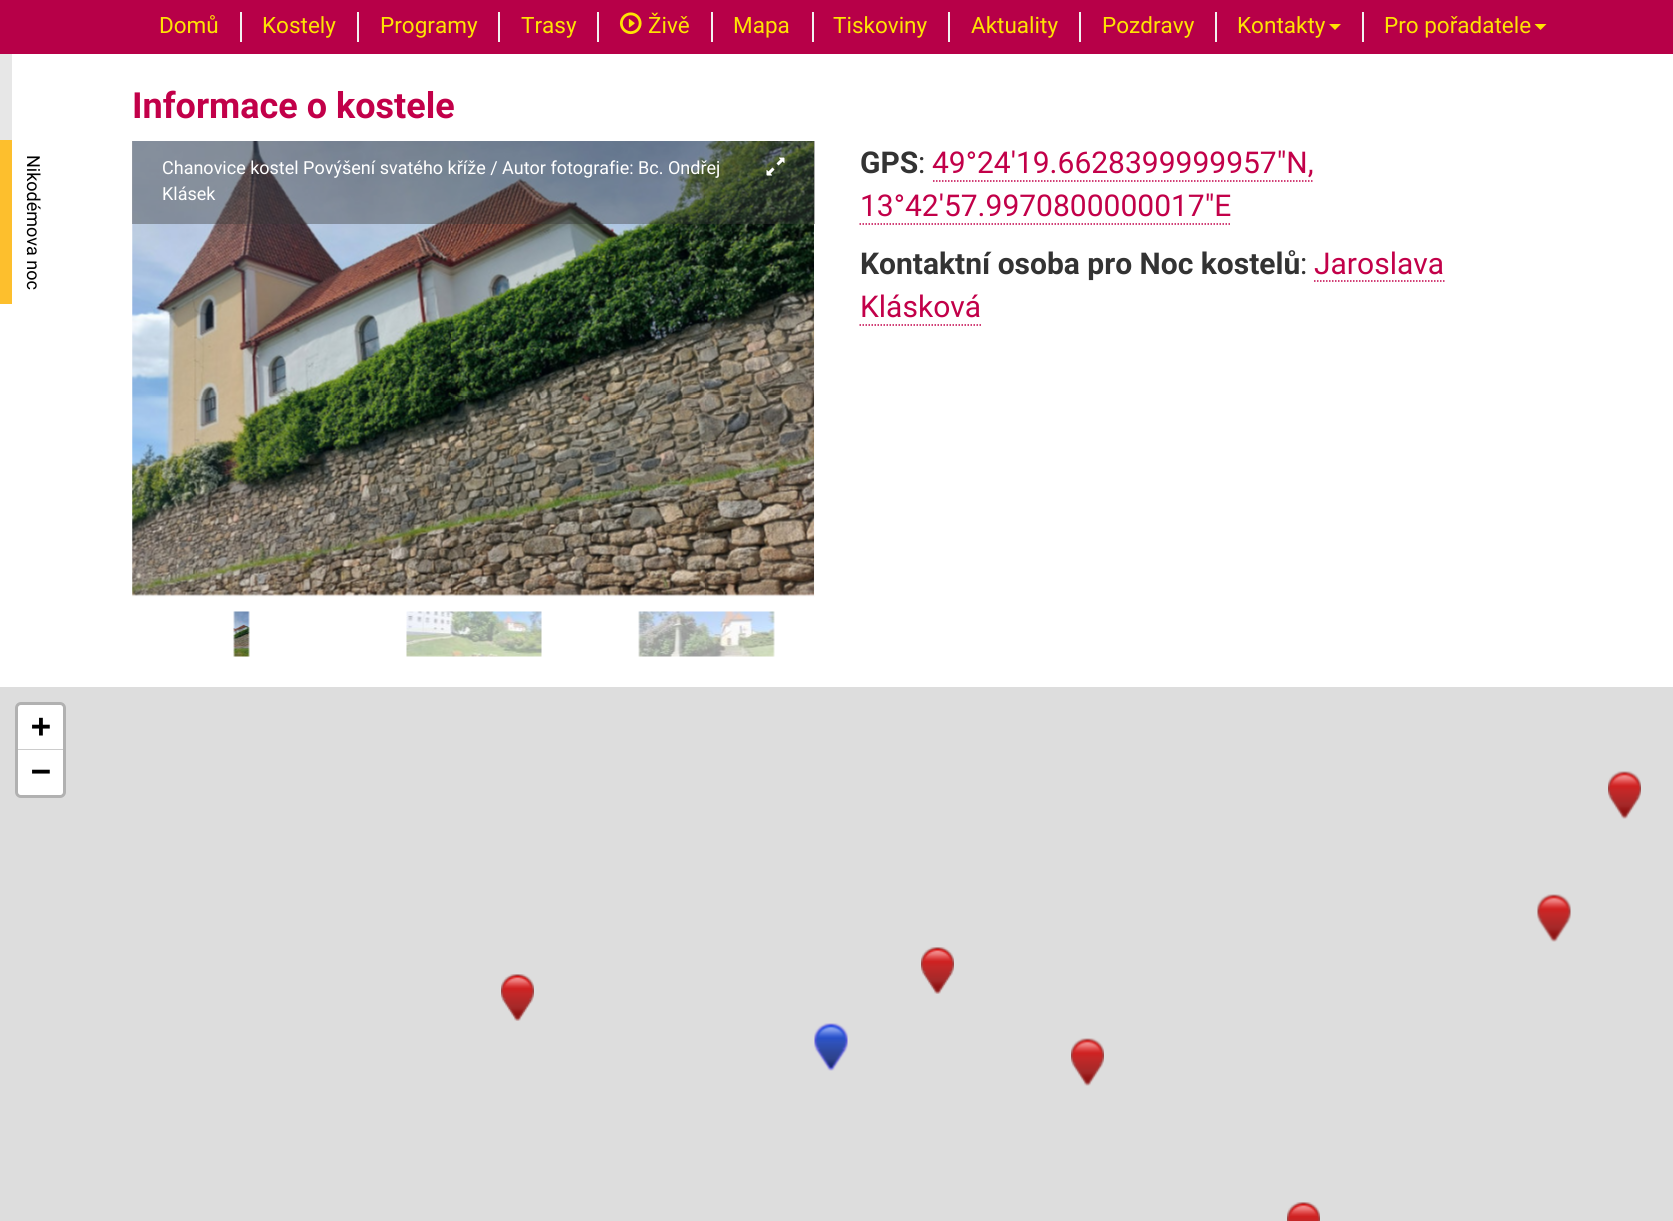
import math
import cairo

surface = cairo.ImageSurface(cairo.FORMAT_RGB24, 1673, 1221)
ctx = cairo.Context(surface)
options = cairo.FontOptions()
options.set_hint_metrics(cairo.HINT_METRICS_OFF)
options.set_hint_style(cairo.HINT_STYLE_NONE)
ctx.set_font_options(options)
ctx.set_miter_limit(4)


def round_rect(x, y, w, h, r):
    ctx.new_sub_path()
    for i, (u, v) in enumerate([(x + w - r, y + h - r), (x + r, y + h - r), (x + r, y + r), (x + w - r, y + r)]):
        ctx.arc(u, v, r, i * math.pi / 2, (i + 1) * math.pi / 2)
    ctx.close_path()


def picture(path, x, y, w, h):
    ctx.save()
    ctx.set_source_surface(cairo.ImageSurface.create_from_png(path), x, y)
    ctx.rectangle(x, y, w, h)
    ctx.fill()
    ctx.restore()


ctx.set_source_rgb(1, 1, 1)
ctx.paint()
ctx.set_source_rgb(0.718, 0, 0.282)
ctx.rectangle(0, 0, 1673, 54)
ctx.fill()
ctx.select_font_face("Roboto")
ctx.set_font_size(22.5)
ctx.set_source_rgb(0.996, 0.89, 0.012)
ctx.move_to(159, 33)
ctx.show_text("Domů")
ctx.set_source_rgb(0.949, 0.949, 0.949)
ctx.rectangle(240, 12, 2, 30)
ctx.fill()
ctx.set_source_rgb(0.996, 0.89, 0.012)
ctx.move_to(262, 33)
ctx.show_text("Kostely")
ctx.set_source_rgb(0.949, 0.949, 0.949)
ctx.rectangle(357, 12, 2, 30)
ctx.fill()
ctx.set_source_rgb(0.996, 0.89, 0.012)
ctx.move_to(380, 33)
ctx.show_text("Programy")
ctx.set_source_rgb(0.949, 0.949, 0.949)
ctx.rectangle(498, 12, 2, 30)
ctx.fill()
ctx.set_source_rgb(0.996, 0.89, 0.012)
ctx.move_to(521, 33)
ctx.show_text("Trasy")
ctx.set_source_rgb(0.949, 0.949, 0.949)
ctx.rectangle(597, 12, 2, 30)
ctx.fill()
picture("img1.png", 619, 12, 23, 23)
ctx.set_source_rgb(0.996, 0.89, 0.012)
ctx.move_to(648, 33)
ctx.show_text("Živě")
ctx.set_source_rgb(0.949, 0.949, 0.949)
ctx.rectangle(711, 12, 2, 30)
ctx.fill()
ctx.set_source_rgb(0.996, 0.89, 0.012)
ctx.move_to(733, 33)
ctx.show_text("Mapa")
ctx.set_source_rgb(0.949, 0.949, 0.949)
ctx.rectangle(812, 12, 2, 30)
ctx.fill()
ctx.set_source_rgb(0.996, 0.89, 0.012)
ctx.move_to(833, 33)
ctx.show_text("Tiskoviny")
ctx.set_source_rgb(0.949, 0.949, 0.949)
ctx.rectangle(948, 12, 2, 30)
ctx.fill()
ctx.set_source_rgb(0.996, 0.89, 0.012)
ctx.move_to(971, 33)
ctx.show_text("Aktuality")
ctx.set_source_rgb(0.949, 0.949, 0.949)
ctx.rectangle(1079, 12, 2, 30)
ctx.fill()
ctx.set_source_rgb(0.996, 0.89, 0.012)
ctx.move_to(1102, 33)
ctx.show_text("Pozdravy")
ctx.set_source_rgb(0.949, 0.949, 0.949)
ctx.rectangle(1215, 12, 2, 30)
ctx.fill()
ctx.set_source_rgb(0.996, 0.89, 0.012)
ctx.move_to(1237, 33)
ctx.show_text("Kontakty")
ctx.new_path()
ctx.move_to(1329, 24)
ctx.line_to(1341, 24)
ctx.line_to(1335, 30)
ctx.close_path()
ctx.fill()
ctx.set_source_rgb(0.949, 0.949, 0.949)
ctx.rectangle(1362, 12, 2, 30)
ctx.fill()
ctx.set_source_rgb(0.996, 0.89, 0.012)
ctx.move_to(1384, 33)
ctx.show_text("Pro pořadatele")
ctx.new_path()
ctx.move_to(1534.5, 24)
ctx.line_to(1546.5, 24)
ctx.line_to(1540.5, 30)
ctx.close_path()
ctx.fill()
ctx.select_font_face("Roboto", cairo.FONT_SLANT_NORMAL, cairo.FONT_WEIGHT_BOLD)
ctx.set_font_size(36)
ctx.set_source_rgb(0.761, 0, 0.286)
ctx.move_to(132, 118)
ctx.show_text("Informace o kostele")
ctx.set_source_rgb(0.988, 0.988, 0.988)
ctx.rectangle(132, 141, 683, 456)
ctx.fill()
picture("img2.png", 132, 141, 682, 455)
ctx.set_source_rgba(0.216, 0.216, 0.216, 0.4)
ctx.rectangle(132, 141, 683, 83)
ctx.fill()
ctx.select_font_face("Roboto")
ctx.set_font_size(18)
ctx.set_source_rgb(1, 1, 1)
ctx.move_to(162, 174)
ctx.show_text("Chanovice kostel Povýšení svatého kříže / Autor fotografie: Bc. Ondřej")
picture("img3.png", 766, 157, 19, 19)
ctx.move_to(162, 200)
ctx.show_text("Klásek")
picture("img4.png", 233, 611, 17, 46)
picture("img5.png", 406, 611, 136, 46)
picture("img6.png", 638, 611, 137, 46)
ctx.select_font_face("Roboto", cairo.FONT_SLANT_NORMAL, cairo.FONT_WEIGHT_BOLD)
ctx.set_font_size(30)
ctx.set_source_rgb(0.2, 0.2, 0.2)
ctx.move_to(860, 173)
ctx.show_text("GPS")
ctx.select_font_face("Roboto")
ctx.move_to(918, 173)
ctx.show_text(":")
ctx.set_source_rgb(0.761, 0, 0.286)
ctx.move_to(932, 173)
ctx.show_text("49°24'19.6628399999957\"N,")
ctx.new_path()
ctx.move_to(933, 181)
ctx.line_to(1314, 181)
ctx.set_line_width(1.5)
ctx.set_dash([1.5, 1.5])
ctx.stroke()
ctx.move_to(860, 216)
ctx.show_text("13°42'57.9970800000017\"E")
ctx.new_path()
ctx.move_to(859.5, 224)
ctx.line_to(1231.5, 224)
ctx.stroke()
ctx.select_font_face("Roboto", cairo.FONT_SLANT_NORMAL, cairo.FONT_WEIGHT_BOLD)
ctx.set_source_rgb(0.2, 0.2, 0.2)
ctx.move_to(860, 274)
ctx.show_text("Kontaktní osoba pro Noc kostelů")
ctx.select_font_face("Roboto")
ctx.move_to(1300, 274)
ctx.show_text(":")
ctx.set_source_rgb(0.761, 0, 0.286)
ctx.move_to(1314, 274)
ctx.show_text("Jaroslava")
ctx.new_path()
ctx.move_to(1314, 281)
ctx.line_to(1444.5, 281)
ctx.stroke()
ctx.move_to(860, 317)
ctx.show_text("Klásková")
ctx.new_path()
ctx.move_to(859.5, 325)
ctx.line_to(981, 325)
ctx.stroke()
ctx.set_source_rgb(0.867, 0.867, 0.867)
ctx.rectangle(0, 687, 1673, 534)
ctx.fill()
round_rect(16.5, 703.5, 48, 93, 4.5)
ctx.set_source_rgb(0.694, 0.694, 0.694)
ctx.set_line_width(3)
ctx.set_dash([])
ctx.stroke()
ctx.set_source_rgb(1, 1, 1)
ctx.new_path()
ctx.move_to(21, 705)
ctx.line_to(60, 705)
ctx.curve_to(61.5, 705, 63, 706.5, 63, 708)
ctx.line_to(63, 750)
ctx.line_to(18, 750)
ctx.line_to(18, 708)
ctx.curve_to(18, 706.5, 19.5, 705, 21, 705)
ctx.close_path()
ctx.fill()
ctx.set_source_rgb(0.8, 0.8, 0.8)
ctx.rectangle(18, 749, 45, 1)
ctx.fill()
ctx.select_font_face("DejaVu Sans Mono", cairo.FONT_SLANT_NORMAL, cairo.FONT_WEIGHT_BOLD)
ctx.set_font_size(33)
ctx.set_source_rgb(0, 0, 0)
ctx.move_to(31, 737)
ctx.show_text("+")
ctx.set_source_rgb(1, 1, 1)
ctx.new_path()
ctx.move_to(18, 750)
ctx.line_to(63, 750)
ctx.line_to(63, 792)
ctx.curve_to(63, 793.5, 61.5, 795, 60, 795)
ctx.line_to(21, 795)
ctx.curve_to(19.5, 795, 18, 793.5, 18, 792)
ctx.close_path()
ctx.fill()
ctx.set_source_rgb(0, 0, 0)
ctx.move_to(31, 782)
ctx.show_text("−")
picture("img7.png", 1608, 771, 33, 48)
picture("img8.png", 1537, 894, 34, 48)
picture("img9.png", 501, 974, 33, 47)
picture("img9.png", 921, 947, 33, 47)
picture("img10.png", 814, 1023, 34, 48)
picture("img7.png", 1071, 1038, 33, 48)
picture("img11.png", 1287, 1202, 33, 19)
ctx.set_source_rgb(0.906, 0.906, 0.906)
ctx.rectangle(0, 54, 12, 86)
ctx.fill()
ctx.set_source_rgb(0.992, 0.749, 0.176)
ctx.rectangle(0, 140, 12, 164)
ctx.fill()
ctx.select_font_face("Roboto")
ctx.set_font_size(18)
ctx.set_source_rgb(0, 0, 0)
ctx.save()
ctx.translate(27, 155)
ctx.rotate(90 * math.pi / 180)
ctx.move_to(0, 0)
ctx.show_text("Nikodémova noc")
ctx.restore()
surface.write_to_png("page.png")
